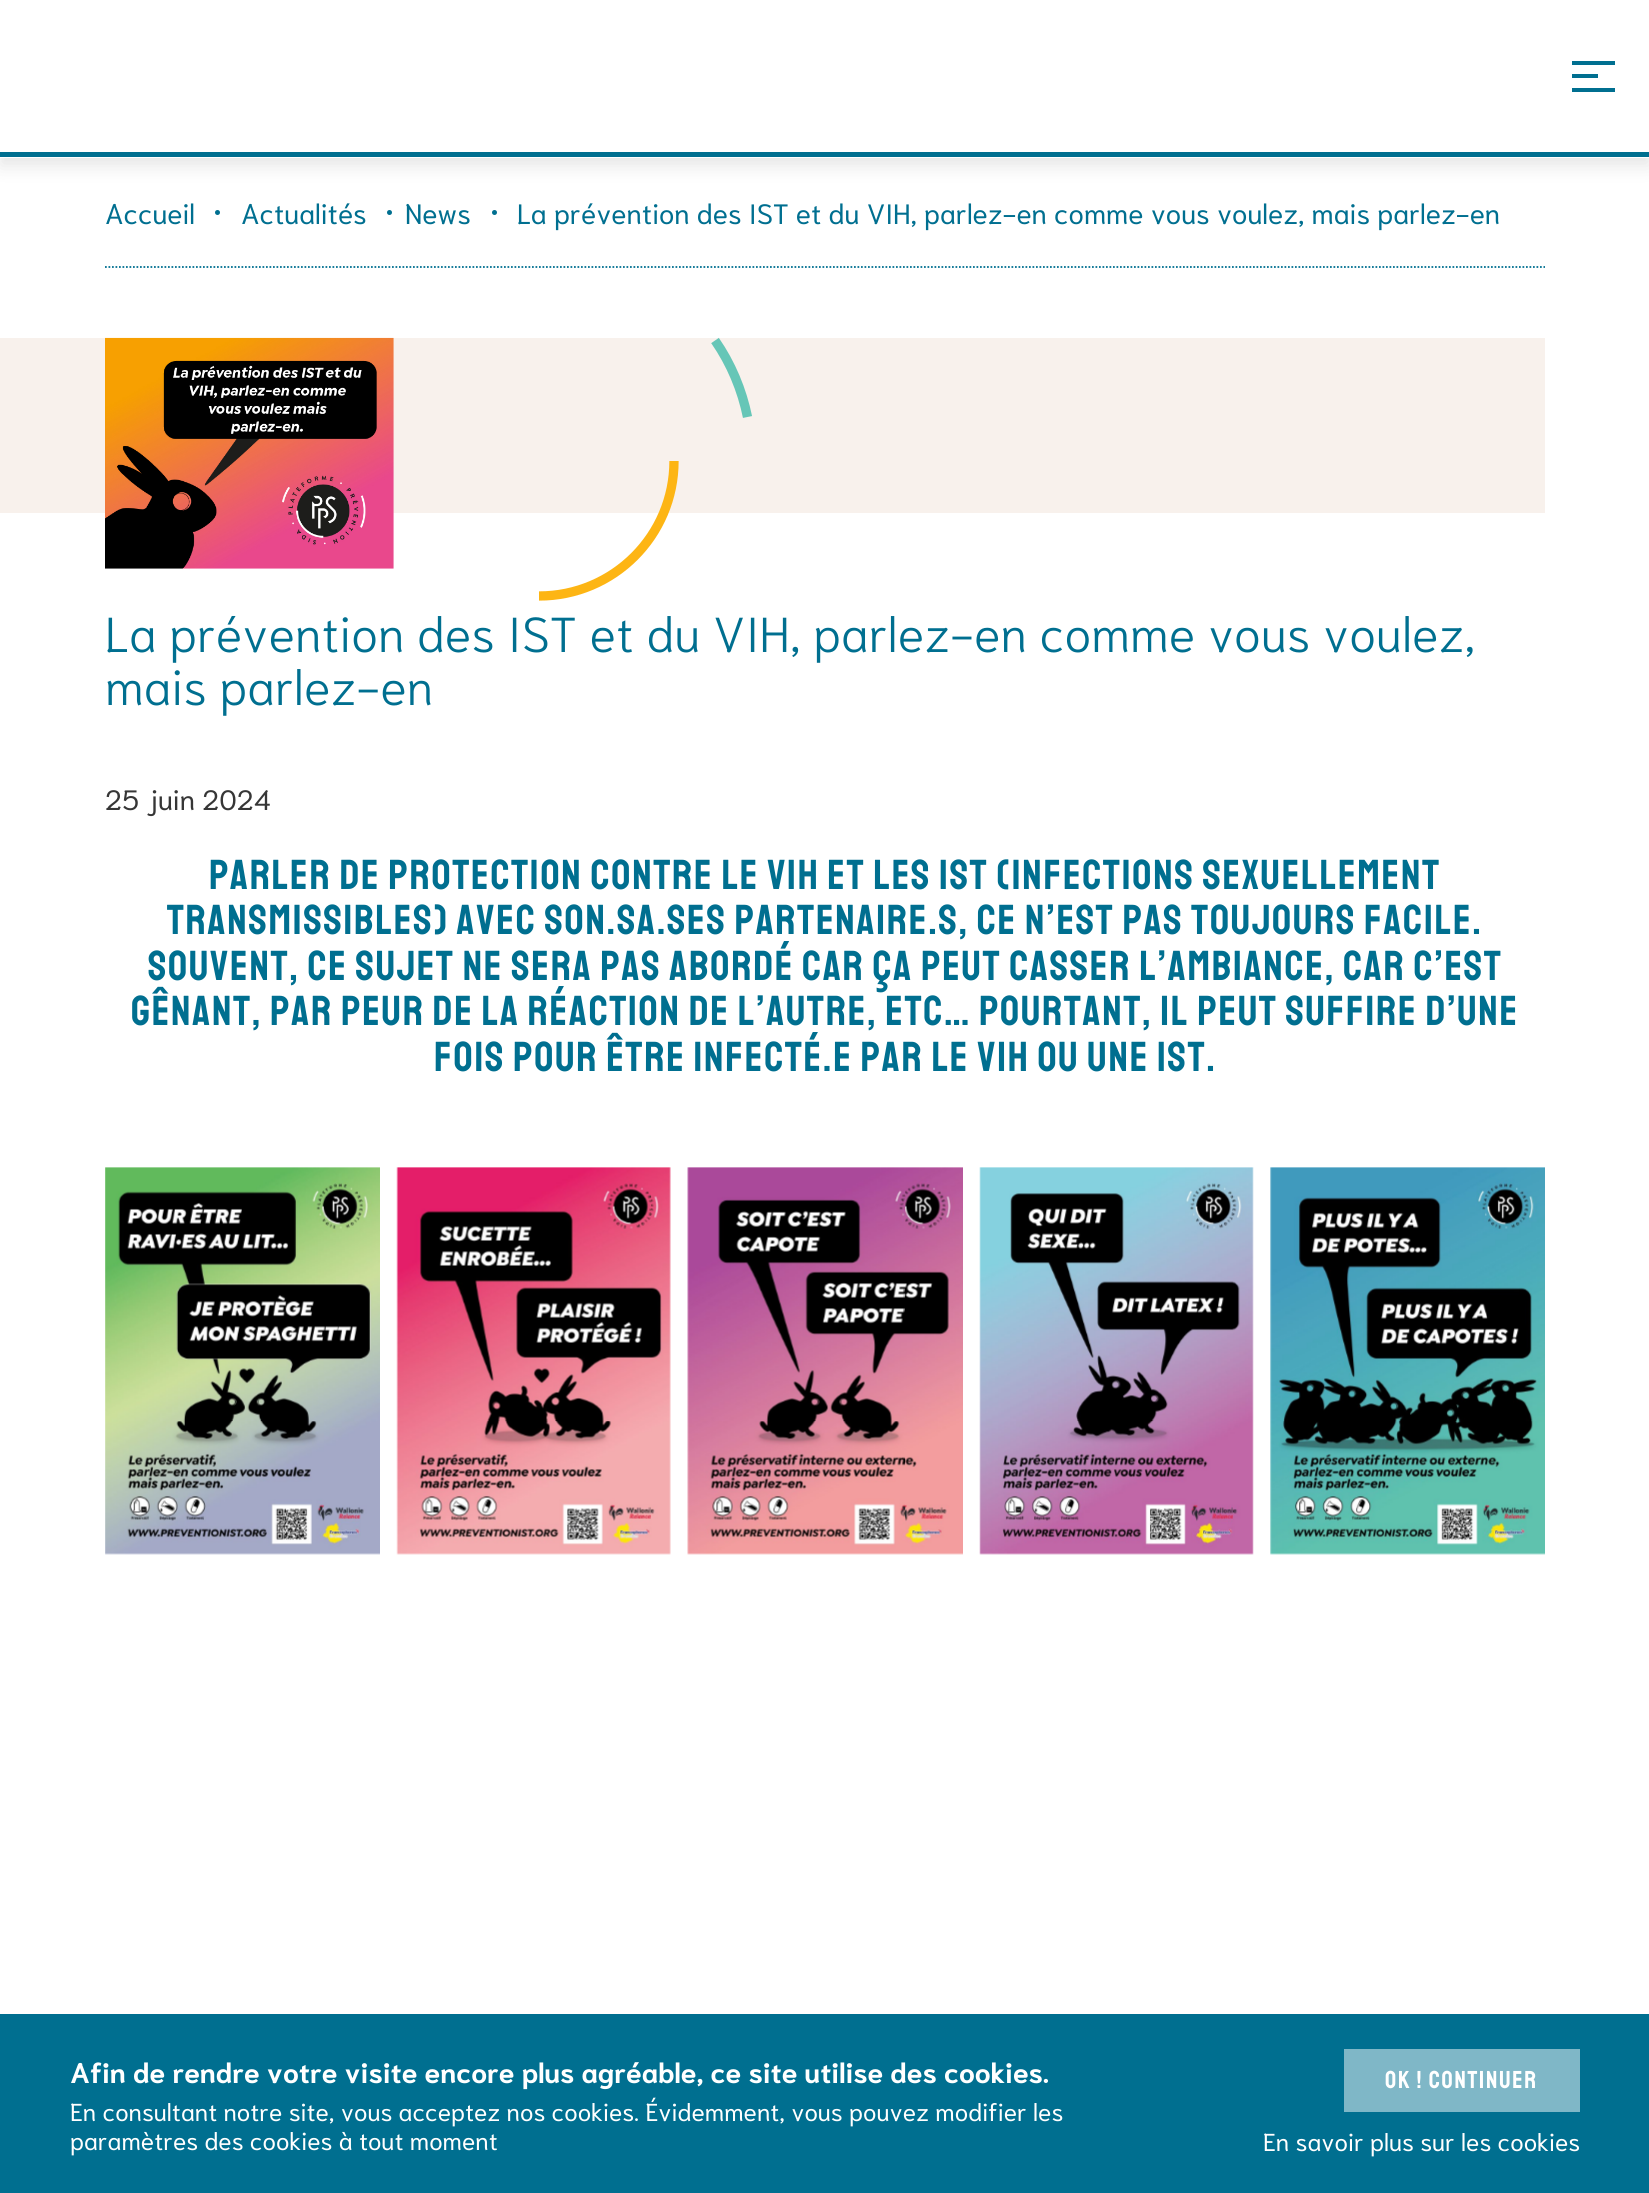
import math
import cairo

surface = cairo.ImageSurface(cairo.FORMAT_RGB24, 1649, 2193)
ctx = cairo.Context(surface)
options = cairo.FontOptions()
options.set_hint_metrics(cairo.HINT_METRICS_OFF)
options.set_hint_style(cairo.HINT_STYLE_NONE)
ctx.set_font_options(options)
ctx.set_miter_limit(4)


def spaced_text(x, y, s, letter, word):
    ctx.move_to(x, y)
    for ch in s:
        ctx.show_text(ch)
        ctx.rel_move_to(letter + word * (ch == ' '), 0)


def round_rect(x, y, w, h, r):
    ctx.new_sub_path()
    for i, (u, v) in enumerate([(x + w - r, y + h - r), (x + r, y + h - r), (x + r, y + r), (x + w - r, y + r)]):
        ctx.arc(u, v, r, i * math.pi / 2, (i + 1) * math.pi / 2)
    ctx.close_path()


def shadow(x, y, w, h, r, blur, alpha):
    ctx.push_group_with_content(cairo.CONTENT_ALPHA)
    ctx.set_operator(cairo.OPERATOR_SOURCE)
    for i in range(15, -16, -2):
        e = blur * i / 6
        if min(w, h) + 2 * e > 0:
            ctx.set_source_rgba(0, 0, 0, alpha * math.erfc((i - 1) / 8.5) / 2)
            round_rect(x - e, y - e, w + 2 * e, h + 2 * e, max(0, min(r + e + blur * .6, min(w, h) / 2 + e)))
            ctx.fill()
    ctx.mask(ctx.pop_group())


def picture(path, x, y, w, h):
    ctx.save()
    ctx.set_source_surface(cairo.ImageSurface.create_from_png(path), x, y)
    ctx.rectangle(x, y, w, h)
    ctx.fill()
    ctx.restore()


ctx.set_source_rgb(1, 1, 1)
ctx.paint()
ctx.set_source_rgb(0, 0, 0)
shadow(0, 9, 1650, 157, 0, 9, 0.1)
ctx.set_source_rgb(1, 1, 1)
ctx.rectangle(0, 0, 1649, 158)
ctx.fill()
ctx.set_source_rgb(0, 0.435, 0.565)
ctx.rectangle(1572, 74, 26, 4)
ctx.fill()
ctx.rectangle(1572, 61, 43, 4)
ctx.fill()
ctx.rectangle(1572, 88, 43, 4)
ctx.fill()
ctx.rectangle(0, 152, 1649, 5)
ctx.fill()
ctx.new_path()
ctx.move_to(105, 267)
ctx.line_to(1545, 267)
ctx.set_line_width(1.8)
ctx.set_dash([1.75, 1.75])
ctx.stroke()
ctx.select_font_face("Niramit")
ctx.set_font_size(28)
ctx.move_to(105, 224)
ctx.show_text("Accueil")
ctx.new_path()
ctx.arc(217.5, 212.5, 2.5, 0, 2 * math.pi)
ctx.fill()
ctx.move_to(241, 224)
ctx.show_text("Actualités")
ctx.new_path()
ctx.arc(389.5, 212.5, 2.5, 0, 2 * math.pi)
ctx.fill()
ctx.move_to(405, 224)
ctx.show_text("News")
ctx.new_path()
ctx.arc(494.5, 212.5, 2.5, 0, 2 * math.pi)
ctx.fill()
ctx.move_to(517, 224)
ctx.show_text("La prévention des IST et du VIH, parlez-en comme vous voulez, mais parlez-en")
ctx.set_source_rgb(0.969, 0.945, 0.922)
ctx.rectangle(0, 338, 1545, 175)
ctx.fill()
picture("img1.png", 105, 337, 289, 232)
ctx.new_path()
ctx.move_to(539, 596)
ctx.curve_to(613.5, 596, 674, 535.5, 674, 461)
ctx.set_source_rgb(0.992, 0.71, 0.082)
ctx.set_line_width(9.3)
ctx.set_dash([])
ctx.stroke()
ctx.new_path()
ctx.move_to(747.5, 417)
ctx.curve_to(742, 390, 731, 363.5, 715, 340.5)
ctx.set_source_rgb(0.4, 0.776, 0.718)
ctx.stroke()
ctx.select_font_face("Niramit Light")
ctx.set_font_size(49)
ctx.set_source_rgb(0, 0.435, 0.565)
ctx.move_to(105, 652)
ctx.show_text("La prévention des IST et du VIH, parlez-en comme vous voulez,")
ctx.move_to(105, 705)
ctx.show_text("mais parlez-en")
ctx.select_font_face("Niramit")
ctx.set_font_size(28)
ctx.set_source_rgb(0.212, 0.212, 0.212)
ctx.move_to(105, 810)
ctx.show_text("25 juin 2024")
ctx.select_font_face("Staatliches")
ctx.set_font_size(42)
ctx.set_source_rgb(0, 0.435, 0.565)
spaced_text(209, 889, "Parler de protection contre le VIH et les IST (Infections Sexuellement", 1.75, 0)
spaced_text(167, 934, "Transmissibles) avec son.sa.ses partenaire.s, ce n’est pas toujours facile.", 1.75, 0)
spaced_text(148, 980, "Souvent, ce sujet ne sera pas abordé car ça peut casser l’ambiance, car c’est", 1.75, 0)
spaced_text(131, 1025, "gênant, par peur de la réaction de l’autre, etc… Pourtant, il peut suffire d’une", 1.75, 0)
spaced_text(434, 1071, "fois pour être infecté.e par le VIH ou une IST.", 1.75, 0)
picture("img2.png", 105, 1167, 275, 388)
picture("img3.png", 396, 1167, 275, 388)
picture("img4.png", 687, 1167, 276, 388)
picture("img5.png", 979, 1167, 275, 388)
picture("img6.png", 1270, 1167, 275, 388)
ctx.rectangle(0, 2014, 1649, 179)
ctx.fill()
ctx.select_font_face("Niramit", cairo.FONT_SLANT_NORMAL, cairo.FONT_WEIGHT_BOLD)
ctx.set_font_size(28)
ctx.set_source_rgb(1, 1, 1)
ctx.move_to(70, 2083)
ctx.show_text("Afin de rendre votre visite encore plus agréable, ce site utilise des cookies.")
ctx.select_font_face("Niramit")
ctx.set_font_size(24.5)
ctx.move_to(70, 2121)
ctx.show_text("En consultant notre site, vous acceptez nos cookies. Évidemment, vous pouvez modifier les")
ctx.move_to(70, 2150)
ctx.show_text("paramètres des cookies à tout moment")
ctx.set_source_rgb(0.498, 0.718, 0.78)
ctx.rectangle(1344, 2049, 236, 63)
ctx.fill()
ctx.select_font_face("Staatliches")
ctx.set_source_rgb(1, 1, 1)
spaced_text(1385, 2088, "OK ! Continuer", 1.75, 0)
ctx.select_font_face("Niramit")
ctx.move_to(1263, 2151)
ctx.show_text("En savoir plus sur les cookies")
surface.write_to_png("page.png")
